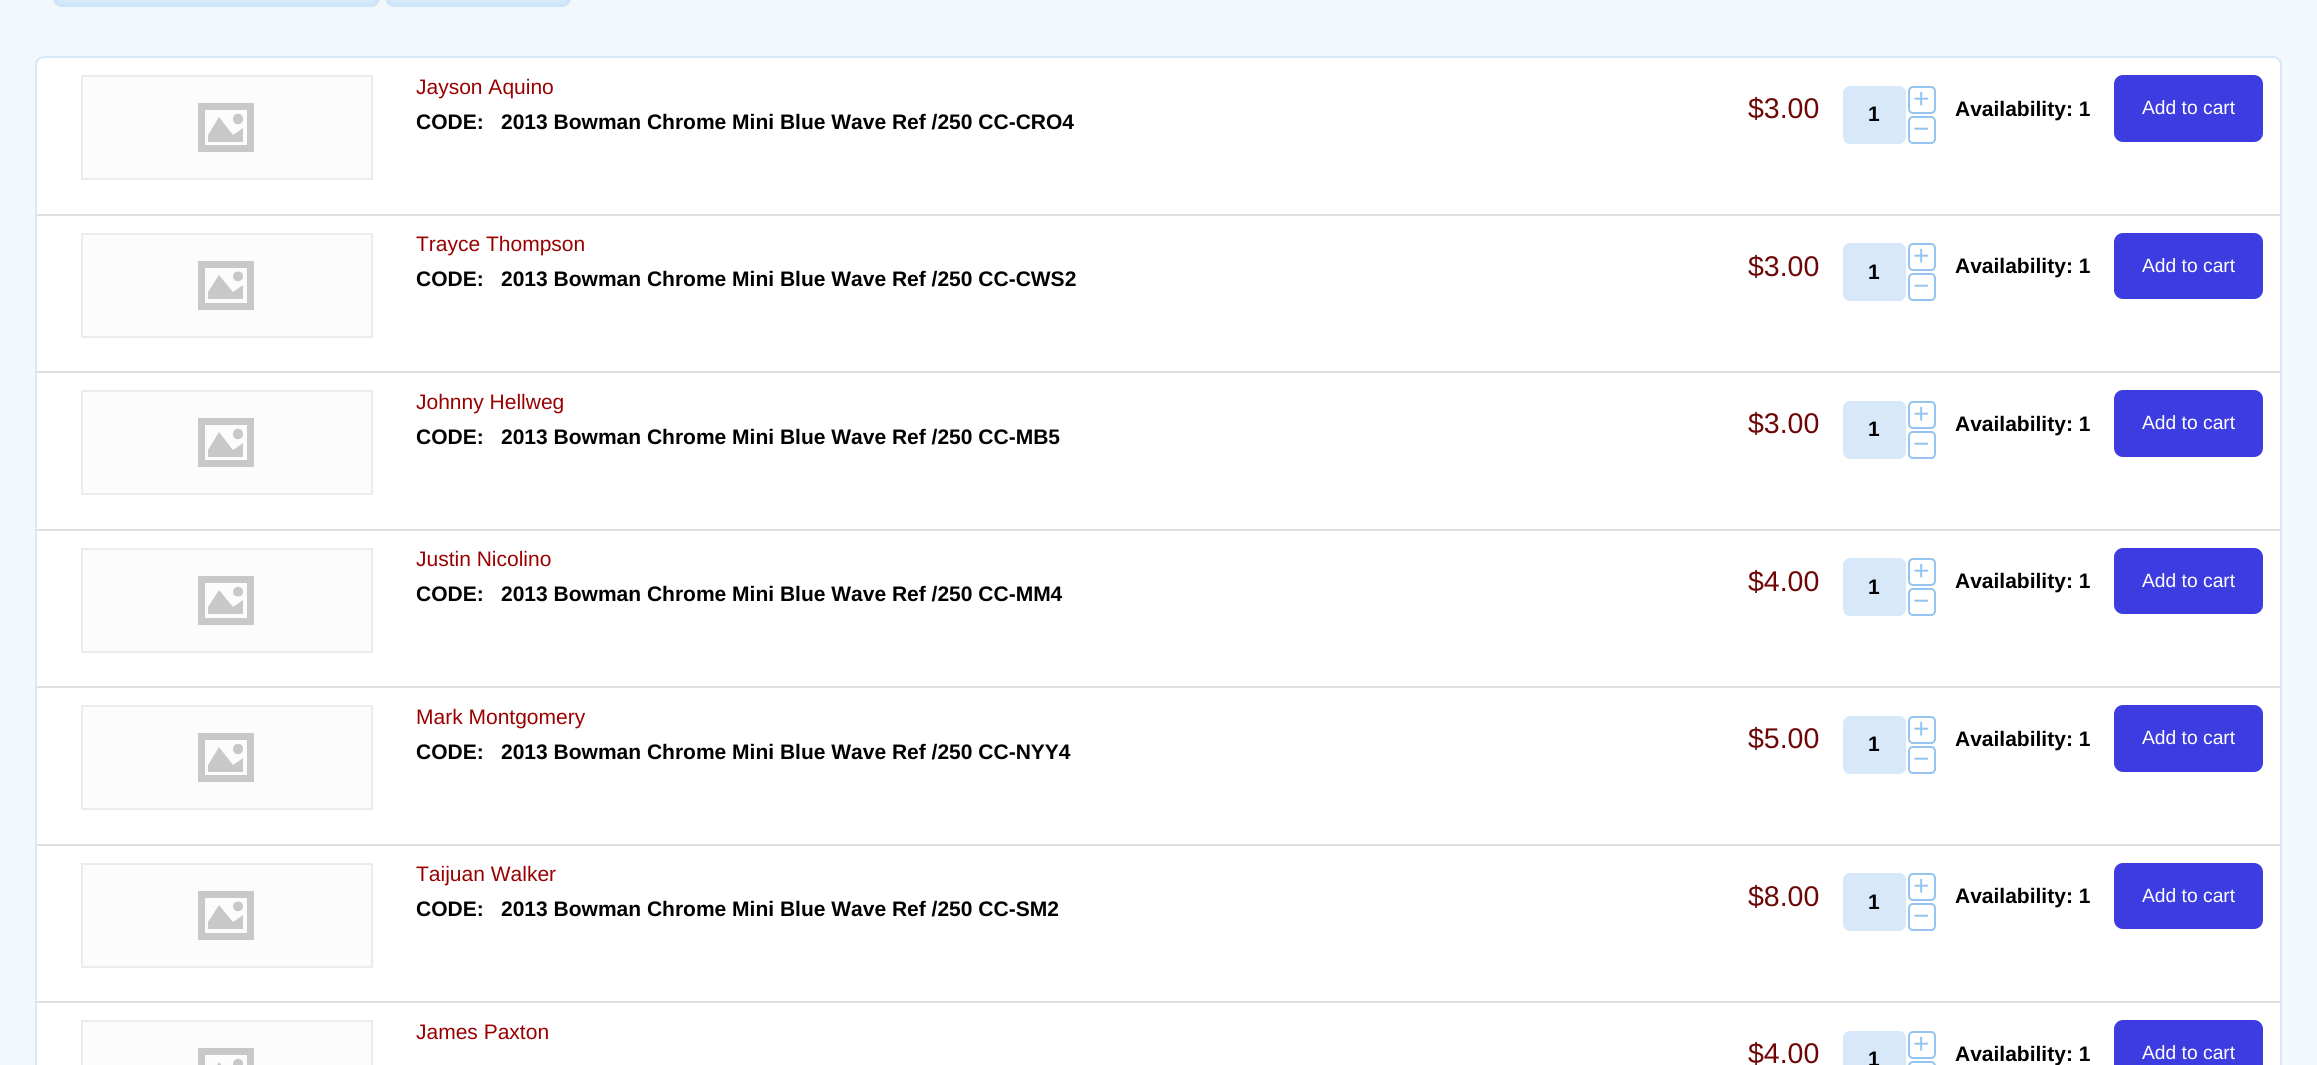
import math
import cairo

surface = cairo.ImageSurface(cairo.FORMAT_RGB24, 2317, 1065)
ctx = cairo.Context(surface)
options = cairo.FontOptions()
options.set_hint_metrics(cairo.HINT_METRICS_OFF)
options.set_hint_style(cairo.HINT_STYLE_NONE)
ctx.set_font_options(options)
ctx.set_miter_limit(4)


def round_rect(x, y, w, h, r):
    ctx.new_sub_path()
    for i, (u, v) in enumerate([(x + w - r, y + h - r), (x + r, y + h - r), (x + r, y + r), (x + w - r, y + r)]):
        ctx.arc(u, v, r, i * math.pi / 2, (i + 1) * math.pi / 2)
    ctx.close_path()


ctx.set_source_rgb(0.949, 0.969, 0.984)
ctx.paint()
ctx.set_source_rgb(0.843, 0.914, 0.976)
round_rect(55, -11, 323, 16, 7)
ctx.fill_preserve()
ctx.set_source_rgb(0.808, 0.894, 0.973)
ctx.set_line_width(4)
ctx.stroke()
ctx.set_source_rgb(0.843, 0.914, 0.976)
round_rect(387, -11, 182, 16, 7)
ctx.fill_preserve()
ctx.set_source_rgb(0.808, 0.894, 0.973)
ctx.stroke()
ctx.set_source_rgb(1, 1, 1)
round_rect(36, 57, 2245, 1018, 8)
ctx.fill_preserve()
ctx.set_source_rgb(0.843, 0.914, 0.976)
ctx.set_line_width(2)
ctx.stroke()
ctx.set_source_rgb(0.875, 0.875, 0.875)
ctx.rectangle(37, 214, 2243, 2)
ctx.fill()
ctx.set_source_rgb(0.988, 0.988, 0.988)
ctx.rectangle(82, 76, 290, 103)
ctx.fill_preserve()
ctx.set_source_rgb(0.922, 0.922, 0.922)
ctx.stroke()
ctx.set_source_rgb(0.784, 0.784, 0.784)
ctx.new_path()
ctx.move_to(247, 110)
ctx.line_to(205, 110)
ctx.line_to(205, 145)
ctx.line_to(247, 145)
ctx.close_path()
ctx.move_to(254, 103)
ctx.line_to(254, 152)
ctx.line_to(198, 152)
ctx.line_to(198, 103)
ctx.close_path()
ctx.move_to(243, 142)
ctx.line_to(208, 142)
ctx.line_to(208, 135)
ctx.line_to(219, 117)
ctx.line_to(233, 135)
ctx.line_to(243, 128)
ctx.close_path()
ctx.move_to(233, 119)
ctx.curve_to(233, 126, 243, 126, 243, 119)
ctx.curve_to(243, 112, 233, 112, 233, 119)
ctx.close_path()
ctx.fill()
ctx.select_font_face("Liberation Sans")
ctx.set_font_size(21)
ctx.set_source_rgb(0.6, 0, 0)
ctx.move_to(416, 94)
ctx.show_text("Jayson Aquino")
ctx.select_font_face("Liberation Sans", cairo.FONT_SLANT_NORMAL, cairo.FONT_WEIGHT_BOLD)
ctx.set_source_rgb(0, 0, 0)
ctx.move_to(416, 129)
ctx.show_text("CODE:")
ctx.move_to(501, 129)
ctx.show_text("2013 Bowman Chrome Mini Blue Wave Ref /250 CC-CRO4")
ctx.select_font_face("Liberation Sans")
ctx.set_font_size(28.5)
ctx.set_source_rgb(0.427, 0.031, 0.031)
ctx.move_to(1748, 118)
ctx.show_text("$3.00")
round_rect(1909, 87, 26, 26, 4)
ctx.set_source_rgb(0.58, 0.769, 0.937)
ctx.stroke()
ctx.set_font_size(28)
ctx.move_to(1913, 108)
ctx.show_text("+")
ctx.set_source_rgb(0.843, 0.914, 0.976)
round_rect(1845, 88, 59, 54, 5)
ctx.fill_preserve()
ctx.set_line_width(4)
ctx.stroke()
ctx.select_font_face("Liberation Sans", cairo.FONT_SLANT_NORMAL, cairo.FONT_WEIGHT_BOLD)
ctx.set_font_size(21)
ctx.set_source_rgb(0, 0, 0)
ctx.move_to(1868, 121)
ctx.show_text("1")
round_rect(1909, 117, 26, 26, 4)
ctx.set_source_rgb(0.58, 0.769, 0.937)
ctx.set_line_width(2)
ctx.stroke()
ctx.select_font_face("Liberation Sans")
ctx.set_font_size(28)
ctx.move_to(1913, 138)
ctx.show_text("−")
ctx.select_font_face("Liberation Sans", cairo.FONT_SLANT_NORMAL, cairo.FONT_WEIGHT_BOLD)
ctx.set_font_size(21)
ctx.set_source_rgb(0, 0, 0)
ctx.move_to(1955, 116)
ctx.show_text("Availability: 1")
ctx.set_source_rgb(0.235, 0.235, 0.882)
round_rect(2114, 75, 149, 67, 9)
ctx.fill()
ctx.select_font_face("Liberation Sans")
ctx.set_font_size(19.25)
ctx.set_source_rgb(1, 1, 1)
ctx.move_to(2142, 114)
ctx.show_text("Add to cart")
ctx.set_source_rgb(0.875, 0.875, 0.875)
ctx.rectangle(37, 371, 2243, 2)
ctx.fill()
ctx.set_source_rgb(0.988, 0.988, 0.988)
ctx.rectangle(82, 234, 290, 103)
ctx.fill_preserve()
ctx.set_source_rgb(0.922, 0.922, 0.922)
ctx.stroke()
ctx.set_source_rgb(0.784, 0.784, 0.784)
ctx.new_path()
ctx.move_to(247, 268)
ctx.line_to(205, 268)
ctx.line_to(205, 303)
ctx.line_to(247, 303)
ctx.close_path()
ctx.move_to(254, 261)
ctx.line_to(254, 310)
ctx.line_to(198, 310)
ctx.line_to(198, 261)
ctx.close_path()
ctx.move_to(243, 299)
ctx.line_to(208, 299)
ctx.line_to(208, 292)
ctx.line_to(219, 275)
ctx.line_to(233, 292)
ctx.line_to(243, 285)
ctx.close_path()
ctx.move_to(233, 276)
ctx.curve_to(233, 283, 243, 283, 243, 276)
ctx.curve_to(243, 270, 233, 270, 233, 276)
ctx.close_path()
ctx.fill()
ctx.set_font_size(21)
ctx.set_source_rgb(0.6, 0, 0)
ctx.move_to(416, 251)
ctx.show_text("Trayce Thompson")
ctx.select_font_face("Liberation Sans", cairo.FONT_SLANT_NORMAL, cairo.FONT_WEIGHT_BOLD)
ctx.set_source_rgb(0, 0, 0)
ctx.move_to(416, 286)
ctx.show_text("CODE:")
ctx.move_to(501, 286)
ctx.show_text("2013 Bowman Chrome Mini Blue Wave Ref /250 CC-CWS2")
ctx.select_font_face("Liberation Sans")
ctx.set_font_size(28.5)
ctx.set_source_rgb(0.427, 0.031, 0.031)
ctx.move_to(1748, 276)
ctx.show_text("$3.00")
round_rect(1909, 244, 26, 26, 4)
ctx.set_source_rgb(0.58, 0.769, 0.937)
ctx.stroke()
ctx.set_font_size(28)
ctx.move_to(1913, 265)
ctx.show_text("+")
ctx.set_source_rgb(0.843, 0.914, 0.976)
round_rect(1845, 245, 59, 54, 5)
ctx.fill_preserve()
ctx.set_line_width(4)
ctx.stroke()
ctx.select_font_face("Liberation Sans", cairo.FONT_SLANT_NORMAL, cairo.FONT_WEIGHT_BOLD)
ctx.set_font_size(21)
ctx.set_source_rgb(0, 0, 0)
ctx.move_to(1868, 279)
ctx.show_text("1")
round_rect(1909, 274, 26, 26, 4)
ctx.set_source_rgb(0.58, 0.769, 0.937)
ctx.set_line_width(2)
ctx.stroke()
ctx.select_font_face("Liberation Sans")
ctx.set_font_size(28)
ctx.move_to(1913, 295)
ctx.show_text("−")
ctx.select_font_face("Liberation Sans", cairo.FONT_SLANT_NORMAL, cairo.FONT_WEIGHT_BOLD)
ctx.set_font_size(21)
ctx.set_source_rgb(0, 0, 0)
ctx.move_to(1955, 273)
ctx.show_text("Availability: 1")
ctx.set_source_rgb(0.235, 0.235, 0.882)
round_rect(2114, 233, 149, 66, 9)
ctx.fill()
ctx.select_font_face("Liberation Sans")
ctx.set_font_size(19.25)
ctx.set_source_rgb(1, 1, 1)
ctx.move_to(2142, 272)
ctx.show_text("Add to cart")
ctx.set_source_rgb(0.875, 0.875, 0.875)
ctx.rectangle(37, 529, 2243, 2)
ctx.fill()
ctx.set_source_rgb(0.988, 0.988, 0.988)
ctx.rectangle(82, 391, 290, 103)
ctx.fill_preserve()
ctx.set_source_rgb(0.922, 0.922, 0.922)
ctx.stroke()
ctx.set_source_rgb(0.784, 0.784, 0.784)
ctx.new_path()
ctx.move_to(247, 425)
ctx.line_to(205, 425)
ctx.line_to(205, 460)
ctx.line_to(247, 460)
ctx.close_path()
ctx.move_to(254, 418)
ctx.line_to(254, 467)
ctx.line_to(198, 467)
ctx.line_to(198, 418)
ctx.close_path()
ctx.move_to(243, 457)
ctx.line_to(208, 457)
ctx.line_to(208, 450)
ctx.line_to(219, 432)
ctx.line_to(233, 450)
ctx.line_to(243, 443)
ctx.close_path()
ctx.move_to(233, 434)
ctx.curve_to(233, 441, 243, 441, 243, 434)
ctx.curve_to(243, 427, 233, 427, 233, 434)
ctx.close_path()
ctx.fill()
ctx.set_font_size(21)
ctx.set_source_rgb(0.6, 0, 0)
ctx.move_to(416, 409)
ctx.show_text("Johnny Hellweg")
ctx.select_font_face("Liberation Sans", cairo.FONT_SLANT_NORMAL, cairo.FONT_WEIGHT_BOLD)
ctx.set_source_rgb(0, 0, 0)
ctx.move_to(416, 444)
ctx.show_text("CODE:")
ctx.move_to(501, 444)
ctx.show_text("2013 Bowman Chrome Mini Blue Wave Ref /250 CC-MB5")
ctx.select_font_face("Liberation Sans")
ctx.set_font_size(28.5)
ctx.set_source_rgb(0.427, 0.031, 0.031)
ctx.move_to(1748, 433)
ctx.show_text("$3.00")
round_rect(1909, 402, 26, 26, 4)
ctx.set_source_rgb(0.58, 0.769, 0.937)
ctx.stroke()
ctx.set_font_size(28)
ctx.move_to(1913, 423)
ctx.show_text("+")
ctx.set_source_rgb(0.843, 0.914, 0.976)
round_rect(1845, 403, 59, 54, 5)
ctx.fill_preserve()
ctx.set_line_width(4)
ctx.stroke()
ctx.select_font_face("Liberation Sans", cairo.FONT_SLANT_NORMAL, cairo.FONT_WEIGHT_BOLD)
ctx.set_font_size(21)
ctx.set_source_rgb(0, 0, 0)
ctx.move_to(1868, 436)
ctx.show_text("1")
round_rect(1909, 432, 26, 26, 4)
ctx.set_source_rgb(0.58, 0.769, 0.937)
ctx.set_line_width(2)
ctx.stroke()
ctx.select_font_face("Liberation Sans")
ctx.set_font_size(28)
ctx.move_to(1913, 453)
ctx.show_text("−")
ctx.select_font_face("Liberation Sans", cairo.FONT_SLANT_NORMAL, cairo.FONT_WEIGHT_BOLD)
ctx.set_font_size(21)
ctx.set_source_rgb(0, 0, 0)
ctx.move_to(1955, 431)
ctx.show_text("Availability: 1")
ctx.set_source_rgb(0.235, 0.235, 0.882)
round_rect(2114, 390, 149, 67, 9)
ctx.fill()
ctx.select_font_face("Liberation Sans")
ctx.set_font_size(19.25)
ctx.set_source_rgb(1, 1, 1)
ctx.move_to(2142, 429)
ctx.show_text("Add to cart")
ctx.set_source_rgb(0.875, 0.875, 0.875)
ctx.rectangle(37, 686, 2243, 2)
ctx.fill()
ctx.set_source_rgb(0.988, 0.988, 0.988)
ctx.rectangle(82, 549, 290, 103)
ctx.fill_preserve()
ctx.set_source_rgb(0.922, 0.922, 0.922)
ctx.stroke()
ctx.set_source_rgb(0.784, 0.784, 0.784)
ctx.new_path()
ctx.move_to(247, 583)
ctx.line_to(205, 583)
ctx.line_to(205, 618)
ctx.line_to(247, 618)
ctx.close_path()
ctx.move_to(254, 576)
ctx.line_to(254, 625)
ctx.line_to(198, 625)
ctx.line_to(198, 576)
ctx.close_path()
ctx.move_to(243, 614)
ctx.line_to(208, 614)
ctx.line_to(208, 607)
ctx.line_to(219, 590)
ctx.line_to(233, 607)
ctx.line_to(243, 600)
ctx.close_path()
ctx.move_to(233, 592)
ctx.curve_to(233, 598, 243, 598, 243, 592)
ctx.curve_to(243, 585, 233, 585, 233, 592)
ctx.close_path()
ctx.fill()
ctx.set_font_size(21)
ctx.set_source_rgb(0.6, 0, 0)
ctx.move_to(416, 566)
ctx.show_text("Justin Nicolino")
ctx.select_font_face("Liberation Sans", cairo.FONT_SLANT_NORMAL, cairo.FONT_WEIGHT_BOLD)
ctx.set_source_rgb(0, 0, 0)
ctx.move_to(416, 601)
ctx.show_text("CODE:")
ctx.move_to(501, 601)
ctx.show_text("2013 Bowman Chrome Mini Blue Wave Ref /250 CC-MM4")
ctx.select_font_face("Liberation Sans")
ctx.set_font_size(28.5)
ctx.set_source_rgb(0.427, 0.031, 0.031)
ctx.move_to(1748, 591)
ctx.show_text("$4.00")
round_rect(1909, 559, 26, 26, 4)
ctx.set_source_rgb(0.58, 0.769, 0.937)
ctx.stroke()
ctx.set_font_size(28)
ctx.move_to(1913, 580)
ctx.show_text("+")
ctx.set_source_rgb(0.843, 0.914, 0.976)
round_rect(1845, 560, 59, 54, 5)
ctx.fill_preserve()
ctx.set_line_width(4)
ctx.stroke()
ctx.select_font_face("Liberation Sans", cairo.FONT_SLANT_NORMAL, cairo.FONT_WEIGHT_BOLD)
ctx.set_font_size(21)
ctx.set_source_rgb(0, 0, 0)
ctx.move_to(1868, 594)
ctx.show_text("1")
round_rect(1909, 589, 26, 26, 4)
ctx.set_source_rgb(0.58, 0.769, 0.937)
ctx.set_line_width(2)
ctx.stroke()
ctx.select_font_face("Liberation Sans")
ctx.set_font_size(28)
ctx.move_to(1913, 610)
ctx.show_text("−")
ctx.select_font_face("Liberation Sans", cairo.FONT_SLANT_NORMAL, cairo.FONT_WEIGHT_BOLD)
ctx.set_font_size(21)
ctx.set_source_rgb(0, 0, 0)
ctx.move_to(1955, 588)
ctx.show_text("Availability: 1")
ctx.set_source_rgb(0.235, 0.235, 0.882)
round_rect(2114, 548, 149, 66, 9)
ctx.fill()
ctx.select_font_face("Liberation Sans")
ctx.set_font_size(19.25)
ctx.set_source_rgb(1, 1, 1)
ctx.move_to(2142, 587)
ctx.show_text("Add to cart")
ctx.set_source_rgb(0.875, 0.875, 0.875)
ctx.rectangle(37, 844, 2243, 2)
ctx.fill()
ctx.set_source_rgb(0.988, 0.988, 0.988)
ctx.rectangle(82, 706, 290, 103)
ctx.fill_preserve()
ctx.set_source_rgb(0.922, 0.922, 0.922)
ctx.stroke()
ctx.set_source_rgb(0.784, 0.784, 0.784)
ctx.new_path()
ctx.move_to(247, 740)
ctx.line_to(205, 740)
ctx.line_to(205, 775)
ctx.line_to(247, 775)
ctx.close_path()
ctx.move_to(254, 733)
ctx.line_to(254, 782)
ctx.line_to(198, 782)
ctx.line_to(198, 733)
ctx.close_path()
ctx.move_to(243, 772)
ctx.line_to(208, 772)
ctx.line_to(208, 765)
ctx.line_to(219, 747)
ctx.line_to(233, 765)
ctx.line_to(243, 758)
ctx.close_path()
ctx.move_to(233, 749)
ctx.curve_to(233, 756, 243, 756, 243, 749)
ctx.curve_to(243, 742, 233, 742, 233, 749)
ctx.close_path()
ctx.fill()
ctx.set_font_size(21)
ctx.set_source_rgb(0.6, 0, 0)
ctx.move_to(416, 724)
ctx.show_text("Mark Montgomery")
ctx.select_font_face("Liberation Sans", cairo.FONT_SLANT_NORMAL, cairo.FONT_WEIGHT_BOLD)
ctx.set_source_rgb(0, 0, 0)
ctx.move_to(416, 759)
ctx.show_text("CODE:")
ctx.move_to(501, 759)
ctx.show_text("2013 Bowman Chrome Mini Blue Wave Ref /250 CC-NYY4")
ctx.select_font_face("Liberation Sans")
ctx.set_font_size(28.5)
ctx.set_source_rgb(0.427, 0.031, 0.031)
ctx.move_to(1748, 748)
ctx.show_text("$5.00")
round_rect(1909, 717, 26, 26, 4)
ctx.set_source_rgb(0.58, 0.769, 0.937)
ctx.stroke()
ctx.set_font_size(28)
ctx.move_to(1913, 738)
ctx.show_text("+")
ctx.set_source_rgb(0.843, 0.914, 0.976)
round_rect(1845, 718, 59, 54, 5)
ctx.fill_preserve()
ctx.set_line_width(4)
ctx.stroke()
ctx.select_font_face("Liberation Sans", cairo.FONT_SLANT_NORMAL, cairo.FONT_WEIGHT_BOLD)
ctx.set_font_size(21)
ctx.set_source_rgb(0, 0, 0)
ctx.move_to(1868, 751)
ctx.show_text("1")
round_rect(1909, 747, 26, 26, 4)
ctx.set_source_rgb(0.58, 0.769, 0.937)
ctx.set_line_width(2)
ctx.stroke()
ctx.select_font_face("Liberation Sans")
ctx.set_font_size(28)
ctx.move_to(1913, 768)
ctx.show_text("−")
ctx.select_font_face("Liberation Sans", cairo.FONT_SLANT_NORMAL, cairo.FONT_WEIGHT_BOLD)
ctx.set_font_size(21)
ctx.set_source_rgb(0, 0, 0)
ctx.move_to(1955, 746)
ctx.show_text("Availability: 1")
ctx.set_source_rgb(0.235, 0.235, 0.882)
round_rect(2114, 705, 149, 67, 9)
ctx.fill()
ctx.select_font_face("Liberation Sans")
ctx.set_font_size(19.25)
ctx.set_source_rgb(1, 1, 1)
ctx.move_to(2142, 744)
ctx.show_text("Add to cart")
ctx.set_source_rgb(0.875, 0.875, 0.875)
ctx.rectangle(37, 1001, 2243, 2)
ctx.fill()
ctx.set_source_rgb(0.988, 0.988, 0.988)
ctx.rectangle(82, 864, 290, 103)
ctx.fill_preserve()
ctx.set_source_rgb(0.922, 0.922, 0.922)
ctx.stroke()
ctx.set_source_rgb(0.784, 0.784, 0.784)
ctx.new_path()
ctx.move_to(247, 898)
ctx.line_to(205, 898)
ctx.line_to(205, 933)
ctx.line_to(247, 933)
ctx.close_path()
ctx.move_to(254, 891)
ctx.line_to(254, 940)
ctx.line_to(198, 940)
ctx.line_to(198, 891)
ctx.close_path()
ctx.move_to(243, 929)
ctx.line_to(208, 929)
ctx.line_to(208, 922)
ctx.line_to(219, 905)
ctx.line_to(233, 922)
ctx.line_to(243, 915)
ctx.close_path()
ctx.move_to(233, 906)
ctx.curve_to(233, 913, 243, 913, 243, 906)
ctx.curve_to(243, 900, 233, 900, 233, 906)
ctx.close_path()
ctx.fill()
ctx.set_font_size(21)
ctx.set_source_rgb(0.6, 0, 0)
ctx.move_to(416, 881)
ctx.show_text("Taijuan Walker")
ctx.select_font_face("Liberation Sans", cairo.FONT_SLANT_NORMAL, cairo.FONT_WEIGHT_BOLD)
ctx.set_source_rgb(0, 0, 0)
ctx.move_to(416, 916)
ctx.show_text("CODE:")
ctx.move_to(501, 916)
ctx.show_text("2013 Bowman Chrome Mini Blue Wave Ref /250 CC-SM2")
ctx.select_font_face("Liberation Sans")
ctx.set_font_size(28.5)
ctx.set_source_rgb(0.427, 0.031, 0.031)
ctx.move_to(1748, 906)
ctx.show_text("$8.00")
round_rect(1909, 874, 26, 26, 4)
ctx.set_source_rgb(0.58, 0.769, 0.937)
ctx.stroke()
ctx.set_font_size(28)
ctx.move_to(1913, 895)
ctx.show_text("+")
ctx.set_source_rgb(0.843, 0.914, 0.976)
round_rect(1845, 875, 59, 54, 5)
ctx.fill_preserve()
ctx.set_line_width(4)
ctx.stroke()
ctx.select_font_face("Liberation Sans", cairo.FONT_SLANT_NORMAL, cairo.FONT_WEIGHT_BOLD)
ctx.set_font_size(21)
ctx.set_source_rgb(0, 0, 0)
ctx.move_to(1868, 909)
ctx.show_text("1")
round_rect(1909, 904, 26, 26, 4)
ctx.set_source_rgb(0.58, 0.769, 0.937)
ctx.set_line_width(2)
ctx.stroke()
ctx.select_font_face("Liberation Sans")
ctx.set_font_size(28)
ctx.move_to(1913, 925)
ctx.show_text("−")
ctx.select_font_face("Liberation Sans", cairo.FONT_SLANT_NORMAL, cairo.FONT_WEIGHT_BOLD)
ctx.set_font_size(21)
ctx.set_source_rgb(0, 0, 0)
ctx.move_to(1955, 903)
ctx.show_text("Availability: 1")
ctx.set_source_rgb(0.235, 0.235, 0.882)
round_rect(2114, 863, 149, 66, 9)
ctx.fill()
ctx.select_font_face("Liberation Sans")
ctx.set_font_size(19.25)
ctx.set_source_rgb(1, 1, 1)
ctx.move_to(2142, 902)
ctx.show_text("Add to cart")
ctx.set_source_rgb(0.988, 0.988, 0.988)
ctx.rectangle(82, 1021, 290, 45)
ctx.fill_preserve()
ctx.set_source_rgb(0.922, 0.922, 0.922)
ctx.stroke()
ctx.set_source_rgb(0.784, 0.784, 0.784)
ctx.new_path()
ctx.move_to(247, 1055)
ctx.line_to(205, 1055)
ctx.line_to(205, 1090)
ctx.line_to(247, 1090)
ctx.close_path()
ctx.move_to(254, 1048)
ctx.line_to(254, 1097)
ctx.line_to(198, 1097)
ctx.line_to(198, 1048)
ctx.close_path()
ctx.move_to(243, 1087)
ctx.line_to(208, 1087)
ctx.line_to(208, 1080)
ctx.line_to(219, 1062)
ctx.line_to(233, 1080)
ctx.line_to(243, 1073)
ctx.close_path()
ctx.move_to(233, 1064)
ctx.curve_to(233, 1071, 243, 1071, 243, 1064)
ctx.curve_to(243, 1057, 233, 1057, 233, 1064)
ctx.close_path()
ctx.fill()
ctx.set_font_size(21)
ctx.set_source_rgb(0.6, 0, 0)
ctx.move_to(416, 1039)
ctx.show_text("James Paxton")
ctx.set_font_size(28.5)
ctx.set_source_rgb(0.427, 0.031, 0.031)
ctx.move_to(1748, 1063)
ctx.show_text("$4.00")
round_rect(1909, 1032, 26, 26, 4)
ctx.set_source_rgb(0.58, 0.769, 0.937)
ctx.stroke()
ctx.set_font_size(28)
ctx.move_to(1913, 1053)
ctx.show_text("+")
ctx.set_source_rgb(0.843, 0.914, 0.976)
round_rect(1845, 1033, 59, 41, 5)
ctx.fill_preserve()
ctx.set_line_width(4)
ctx.stroke()
ctx.select_font_face("Liberation Sans", cairo.FONT_SLANT_NORMAL, cairo.FONT_WEIGHT_BOLD)
ctx.set_font_size(21)
ctx.set_source_rgb(0, 0, 0)
ctx.move_to(1868, 1066)
ctx.show_text("1")
round_rect(1909, 1062, 26, 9, 4)
ctx.set_source_rgb(0.58, 0.769, 0.937)
ctx.set_line_width(2)
ctx.stroke()
ctx.set_source_rgb(0, 0, 0)
ctx.move_to(1955, 1061)
ctx.show_text("Availability: 1")
ctx.set_source_rgb(0.235, 0.235, 0.882)
round_rect(2114, 1020, 149, 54, 9)
ctx.fill()
ctx.select_font_face("Liberation Sans")
ctx.set_font_size(19.25)
ctx.set_source_rgb(1, 1, 1)
ctx.move_to(2142, 1059)
ctx.show_text("Add to cart")
surface.write_to_png("page.png")
